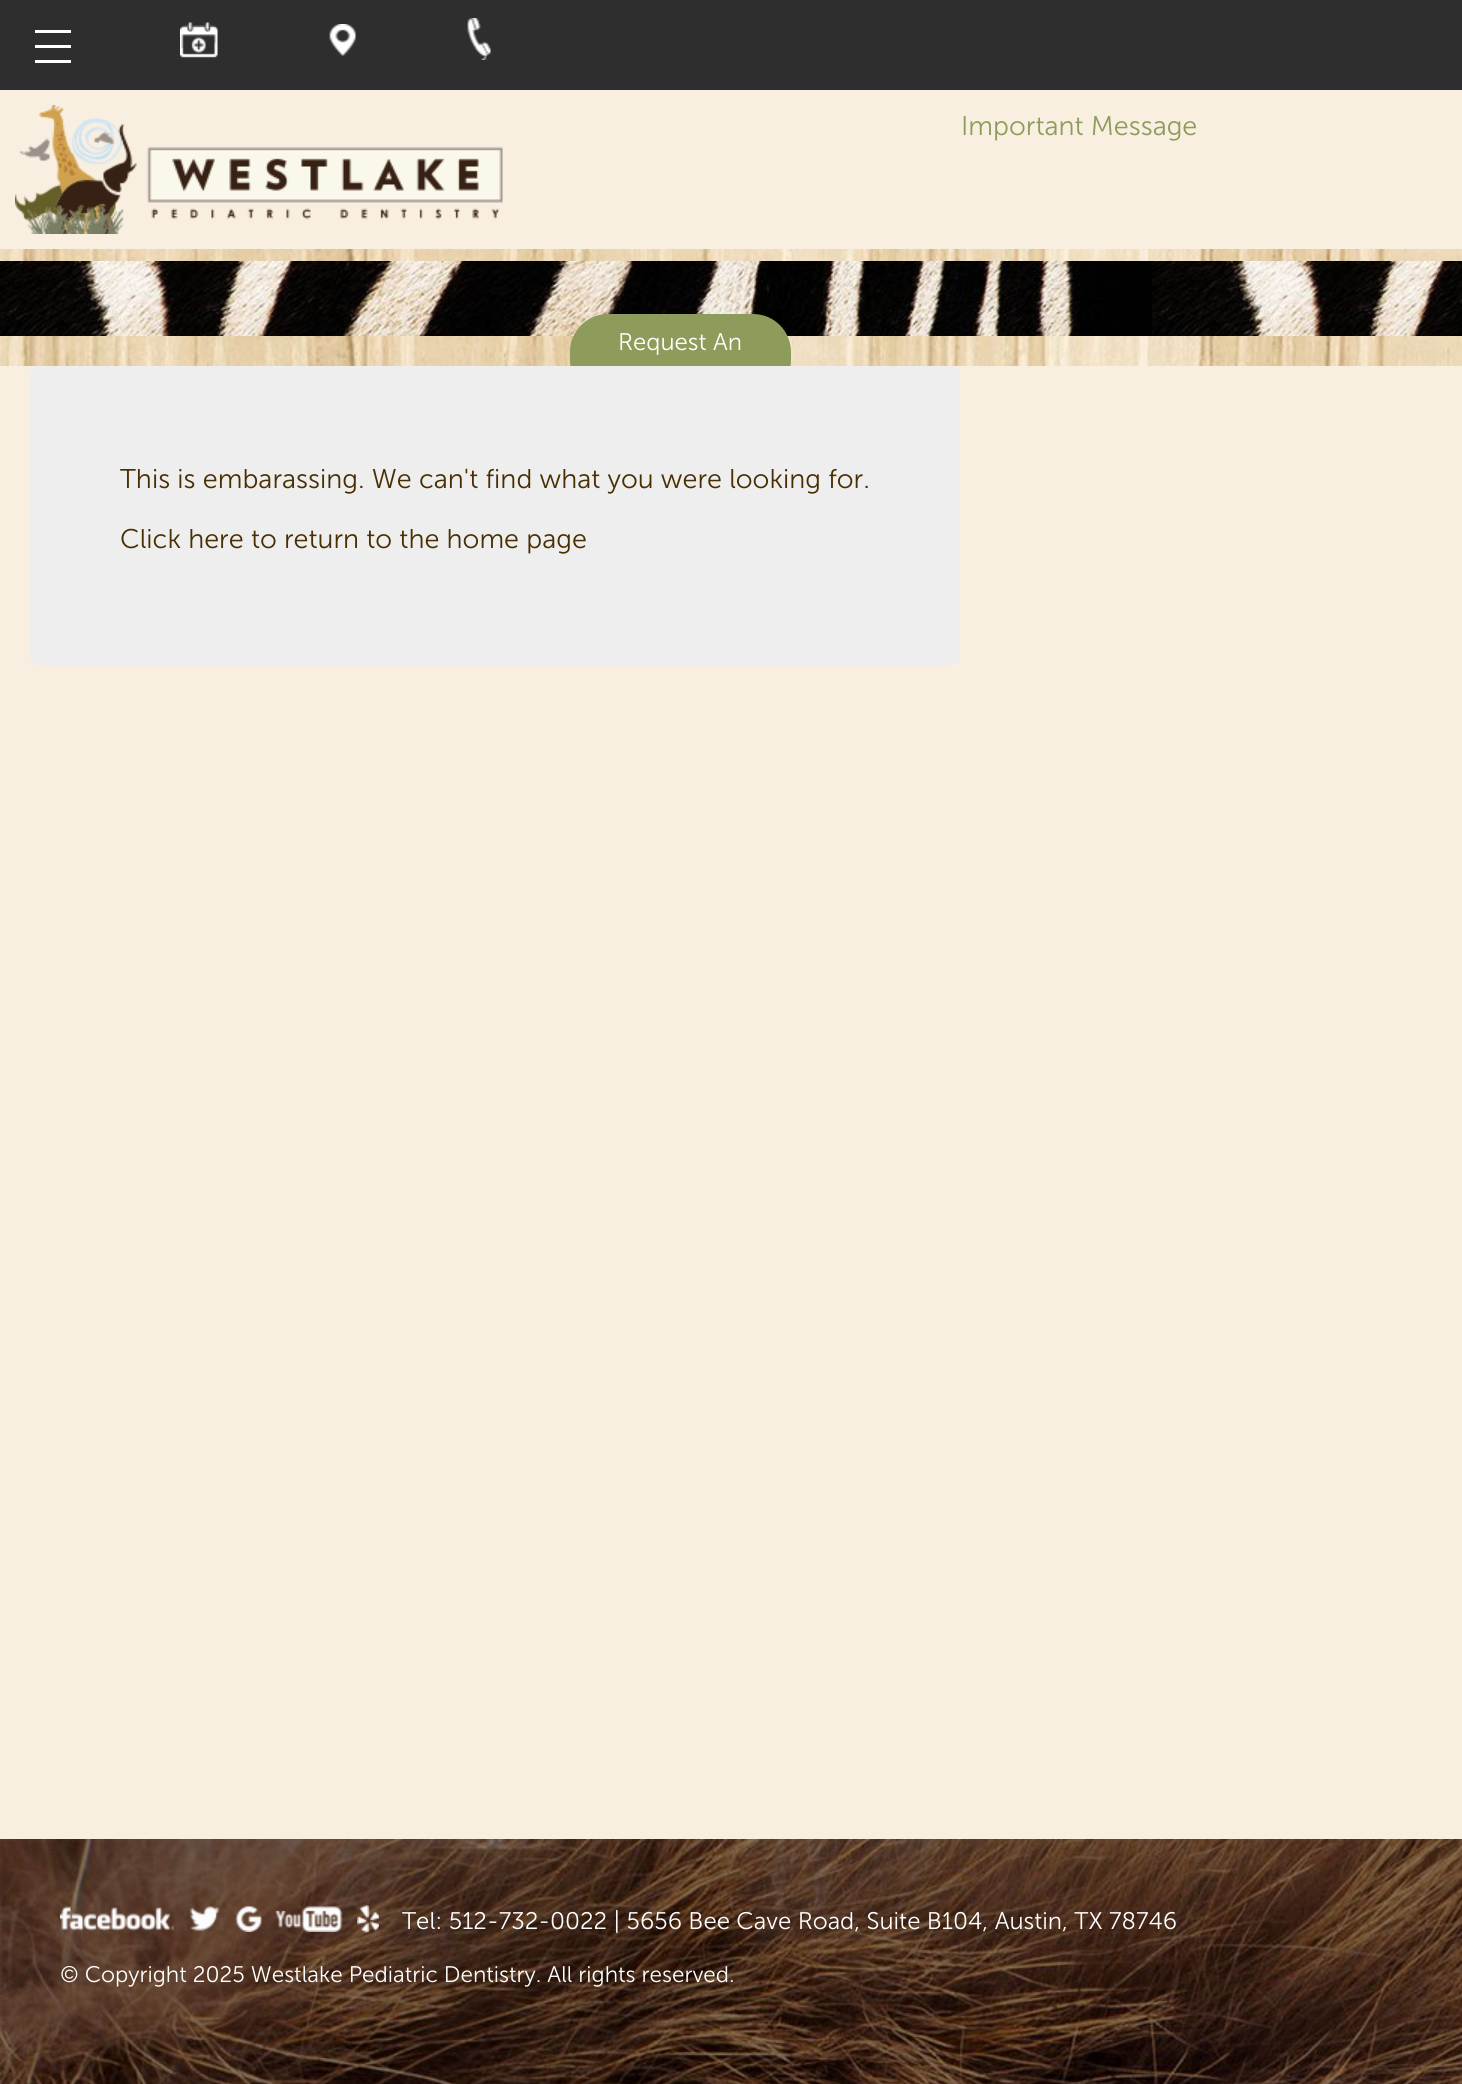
import math
import cairo

surface = cairo.ImageSurface(cairo.FORMAT_RGB24, 1462, 2084)
ctx = cairo.Context(surface)
options = cairo.FontOptions()
options.set_hint_metrics(cairo.HINT_METRICS_OFF)
options.set_hint_style(cairo.HINT_STYLE_NONE)
ctx.set_font_options(options)
ctx.set_miter_limit(4)


def round_rect(x, y, w, h, r):
    ctx.new_sub_path()
    for i, (u, v) in enumerate([(x + w - r, y + h - r), (x + r, y + h - r), (x + r, y + r), (x + w - r, y + r)]):
        ctx.arc(u, v, r, i * math.pi / 2, (i + 1) * math.pi / 2)
    ctx.close_path()


def picture(path, x, y, w, h):
    ctx.save()
    ctx.set_source_surface(cairo.ImageSurface.create_from_png(path), x, y)
    ctx.rectangle(x, y, w, h)
    ctx.fill()
    ctx.restore()


ctx.set_source_rgb(0.969, 0.937, 0.882)
ctx.paint()
ctx.set_source_rgb(0.18, 0.18, 0.18)
ctx.rectangle(0, 0, 1462, 90)
ctx.fill()
ctx.set_source_rgb(1, 1, 1)
ctx.rectangle(35, 30, 36, 3)
ctx.fill()
ctx.rectangle(35, 45, 36, 3)
ctx.fill()
ctx.rectangle(35, 60, 36, 3)
ctx.fill()
picture("img1.png", 180, 22, 38, 36)
picture("img2.png", 329, 24, 27, 32)
picture("img3.png", 467, 18, 24, 42)
picture("img4.png", 15, 105, 488, 129)
ctx.select_font_face("Museo Sans Light")
ctx.set_font_size(27)
ctx.set_source_rgb(0.553, 0.608, 0.357)
ctx.move_to(961, 135)
ctx.show_text("Important Message")
picture("img5.png", 0, 249, 1462, 12)
picture("img6.png", 0, 261, 1462, 75)
picture("img7.png", 0, 336, 1462, 30)
round_rect(570, 314, 221, 84, 38)
ctx.fill()
ctx.set_font_size(24)
ctx.set_source_rgb(1, 1, 1)
ctx.move_to(618, 350)
ctx.show_text("Request An")
ctx.set_source_rgb(0.933, 0.933, 0.933)
round_rect(30, 366, 930, 300, 9)
ctx.fill()
ctx.set_font_size(27)
ctx.set_source_rgb(0.282, 0.18, 0.004)
ctx.move_to(120, 488)
ctx.show_text("This is embarassing. We can't find what you were looking for.")
ctx.move_to(120, 548)
ctx.show_text("Click here to return to the home page")
picture("img8.png", 0, 1839, 1462, 245)
picture("img9.png", 60, 1906, 114, 25)
picture("img10.png", 190, 1906, 30, 25)
picture("img11.png", 235, 1906, 27, 26)
picture("img12.png", 275, 1906, 68, 26)
picture("img13.png", 357, 1905, 22, 28)
ctx.set_font_size(24)
ctx.set_source_rgb(1, 1, 1)
ctx.move_to(402, 1929)
ctx.show_text("Tel: 512-732-0022 | 5656 Bee Cave Road, Suite B104, Austin, TX 78746")
ctx.set_font_size(22.5)
ctx.move_to(60, 1982)
ctx.show_text("© Copyright 2025 Westlake Pediatric Dentistry. All rights reserved.")
surface.write_to_png("page.png")
